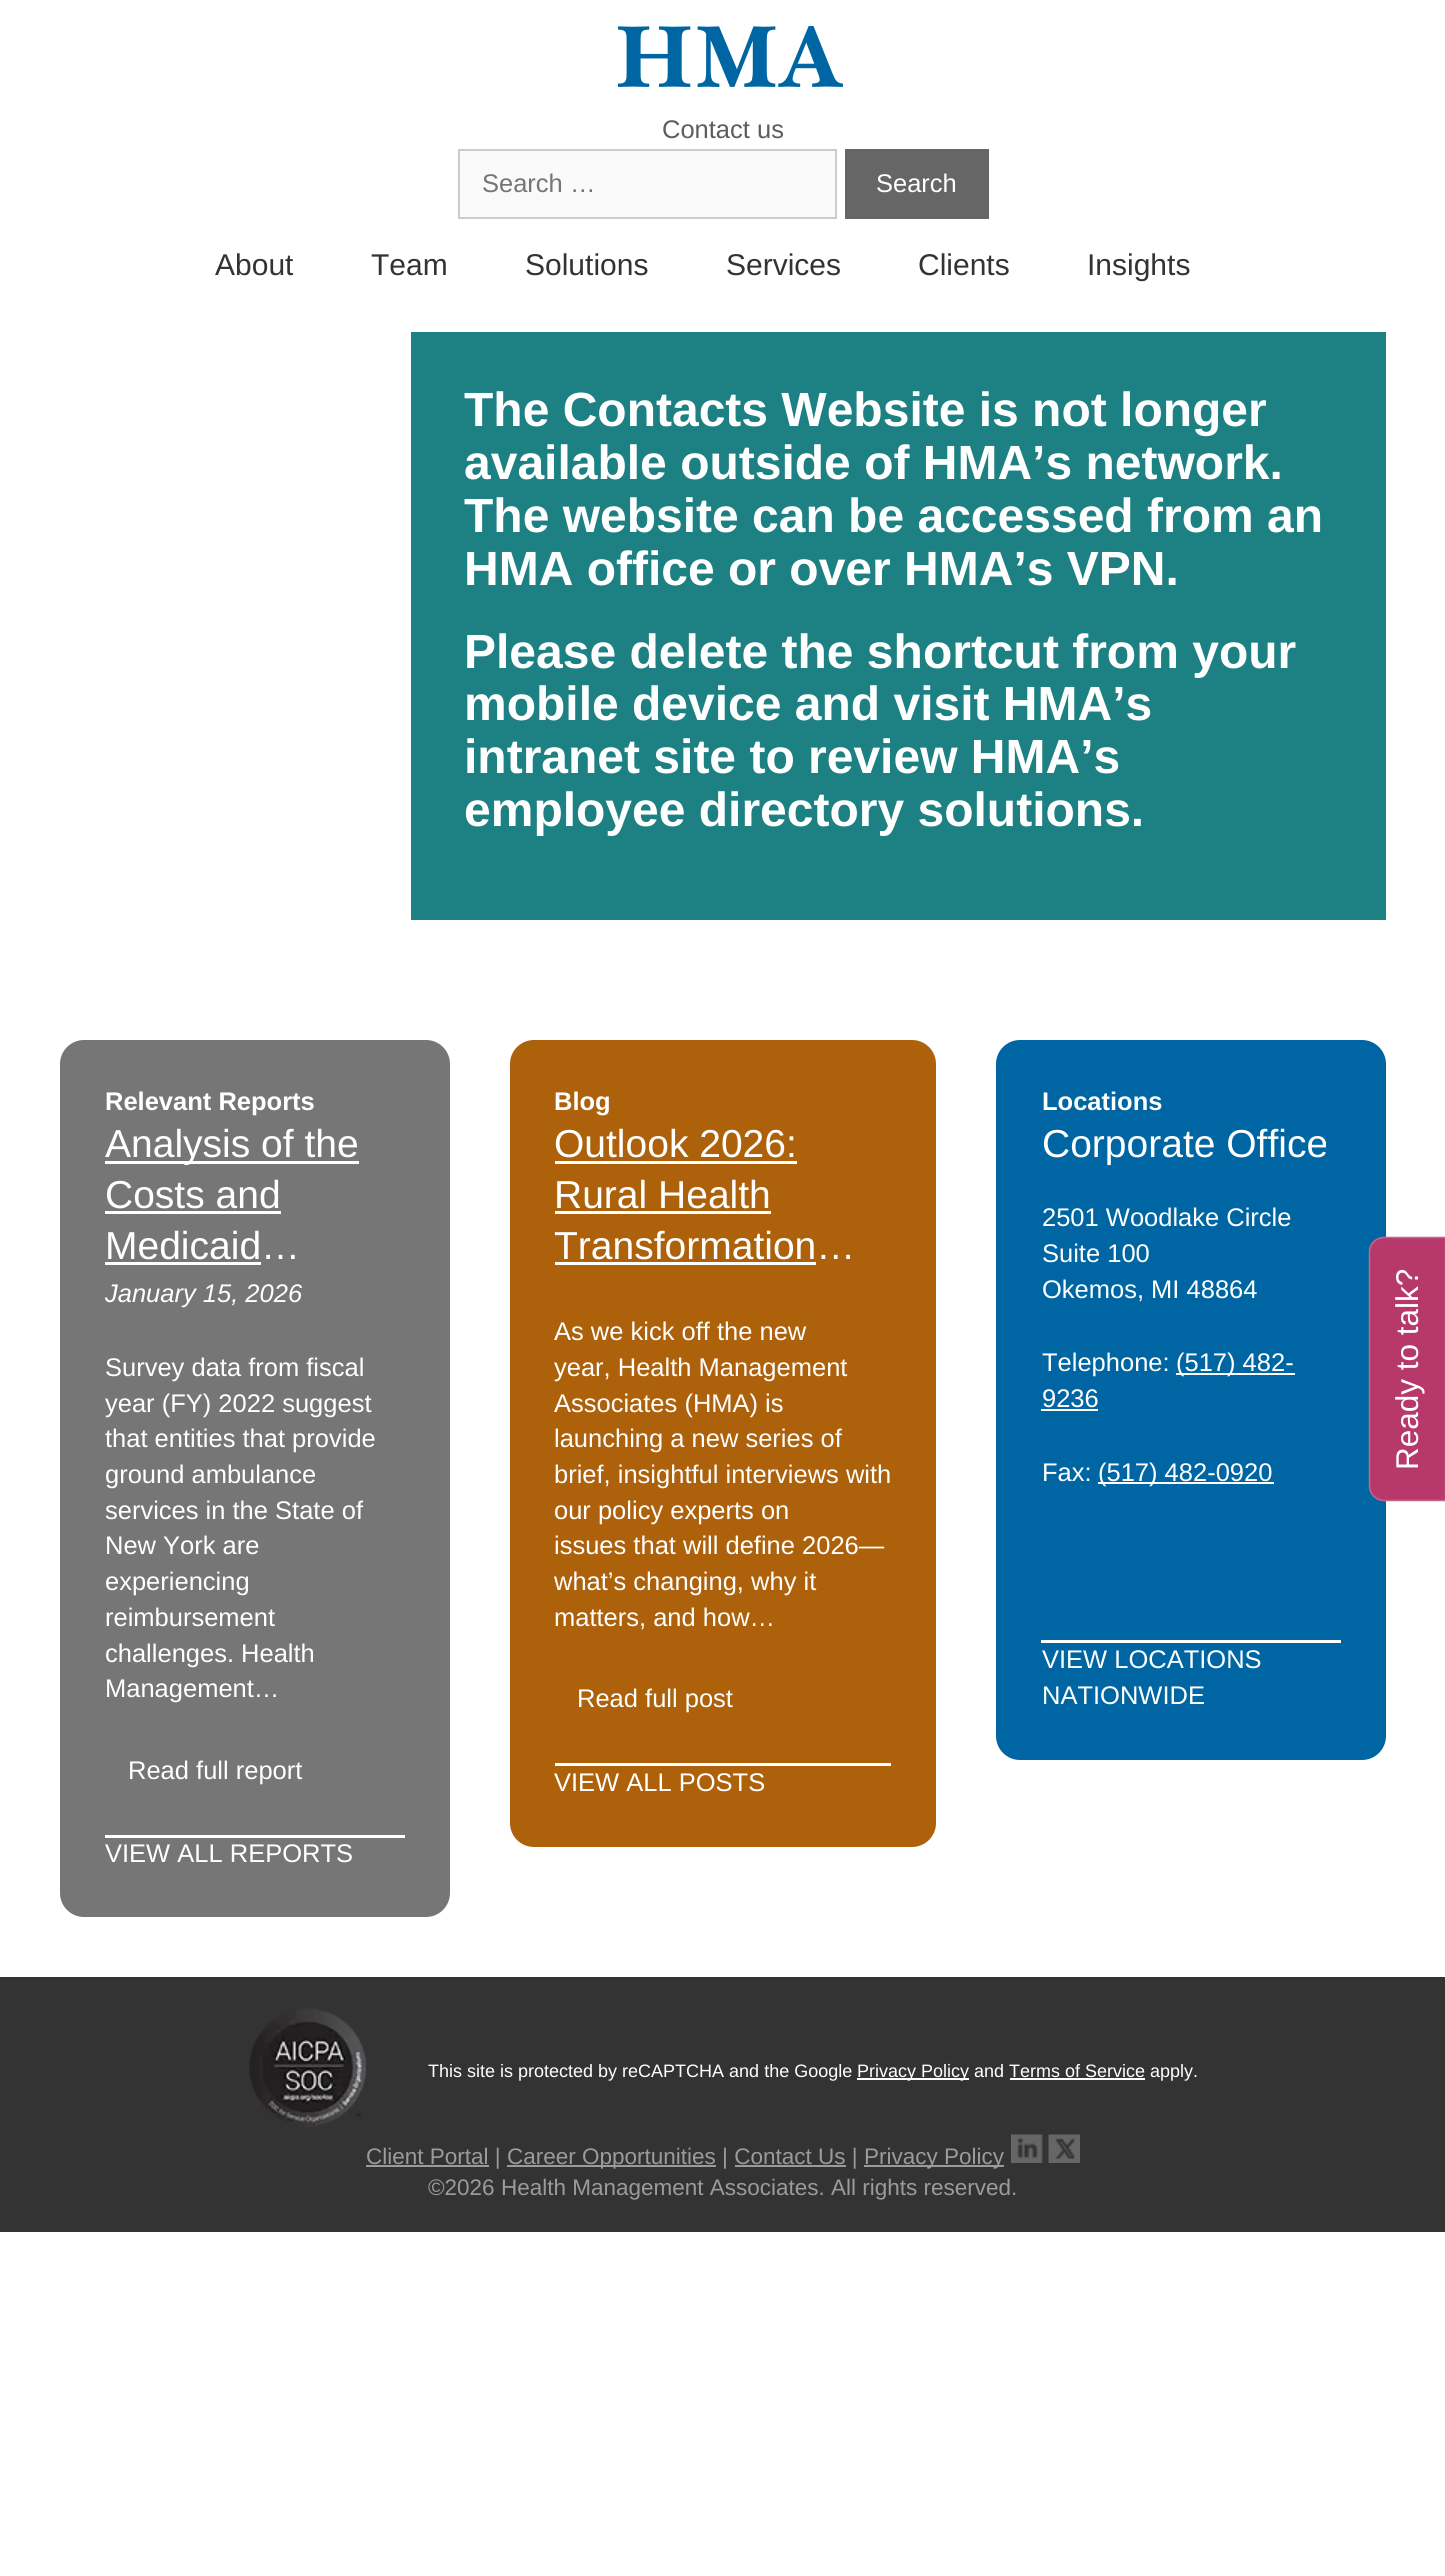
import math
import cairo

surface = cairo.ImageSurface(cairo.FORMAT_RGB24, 1445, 2576)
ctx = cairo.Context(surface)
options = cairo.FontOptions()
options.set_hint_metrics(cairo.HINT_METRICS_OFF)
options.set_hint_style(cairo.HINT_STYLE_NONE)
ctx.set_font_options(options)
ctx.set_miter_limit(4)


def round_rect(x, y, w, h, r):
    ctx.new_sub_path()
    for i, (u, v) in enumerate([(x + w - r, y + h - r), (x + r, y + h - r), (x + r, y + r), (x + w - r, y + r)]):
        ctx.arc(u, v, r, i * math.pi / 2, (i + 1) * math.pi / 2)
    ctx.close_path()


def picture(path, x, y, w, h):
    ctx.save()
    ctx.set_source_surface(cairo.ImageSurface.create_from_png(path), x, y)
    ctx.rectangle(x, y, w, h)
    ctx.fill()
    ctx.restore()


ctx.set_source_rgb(1, 1, 1)
ctx.paint()
picture("img1.png", 618, 26, 225, 61)
ctx.select_font_face("Liberation Sans")
ctx.set_font_size(25.5)
ctx.set_source_rgb(0.365, 0.365, 0.365)
ctx.move_to(662, 138)
ctx.show_text("Contact us")
ctx.set_source_rgb(0.98, 0.98, 0.98)
ctx.rectangle(459, 150, 377, 68)
ctx.fill_preserve()
ctx.set_source_rgb(0.8, 0.8, 0.8)
ctx.stroke()
ctx.set_source_rgb(0.459, 0.459, 0.459)
ctx.move_to(482, 192)
ctx.show_text("Search …")
ctx.set_source_rgb(0.4, 0.4, 0.4)
ctx.rectangle(845, 149, 144, 70)
ctx.fill()
ctx.set_source_rgb(1, 1, 1)
ctx.move_to(876, 192)
ctx.show_text("Search")
ctx.set_font_size(30)
ctx.set_source_rgb(0.2, 0.2, 0.2)
ctx.move_to(215, 275)
ctx.show_text("About")
ctx.move_to(371, 275)
ctx.show_text("Team")
ctx.move_to(525, 275)
ctx.show_text("Solutions")
ctx.move_to(726, 275)
ctx.show_text("Services")
ctx.move_to(918, 275)
ctx.show_text("Clients")
ctx.move_to(1087, 275)
ctx.show_text("Insights")
ctx.set_source_rgb(0.114, 0.502, 0.51)
ctx.rectangle(411, 332, 975, 588)
ctx.fill()
ctx.select_font_face("Liberation Sans", cairo.FONT_SLANT_NORMAL, cairo.FONT_WEIGHT_BOLD)
ctx.set_font_size(48)
ctx.set_source_rgb(1, 1, 1)
ctx.move_to(464, 426)
ctx.show_text("The Contacts Website is not longer")
ctx.move_to(464, 479)
ctx.show_text("available outside of HMA’s network.")
ctx.move_to(464, 532)
ctx.show_text("The website can be accessed from an")
ctx.move_to(464, 585)
ctx.show_text("HMA office or over HMA’s VPN.")
ctx.move_to(464, 668)
ctx.show_text("Please delete the shortcut from your")
ctx.move_to(464, 720)
ctx.show_text("mobile device and visit HMA’s")
ctx.move_to(464, 773)
ctx.show_text("intranet site to review HMA’s")
ctx.move_to(464, 826)
ctx.show_text("employee directory solutions.")
ctx.set_source_rgb(0.463, 0.463, 0.463)
round_rect(60, 1040, 390, 877, 24)
ctx.fill()
ctx.set_font_size(25.5)
ctx.set_source_rgb(1, 1, 1)
ctx.move_to(105, 1110)
ctx.show_text("Relevant Reports")
ctx.rectangle(105, 1161, 254, 3)
ctx.fill()
ctx.select_font_face("Liberation Sans")
ctx.set_font_size(39)
ctx.move_to(105, 1157)
ctx.show_text("Analysis of the")
ctx.move_to(105, 1208)
ctx.show_text("Costs and")
ctx.rectangle(105, 1211, 176, 3)
ctx.fill()
ctx.move_to(105, 1259)
ctx.show_text("Medicaid…")
ctx.rectangle(105, 1262, 156, 3)
ctx.fill()
ctx.select_font_face("Liberation Sans", cairo.FONT_SLANT_ITALIC)
ctx.set_font_size(25.5)
ctx.move_to(105, 1302)
ctx.show_text("January 15, 2026")
ctx.select_font_face("Liberation Sans")
ctx.move_to(105, 1376)
ctx.show_text("Survey data from fiscal")
ctx.move_to(105, 1412)
ctx.show_text("year (FY) 2022 suggest")
ctx.move_to(105, 1447)
ctx.show_text("that entities that provide")
ctx.move_to(105, 1483)
ctx.show_text("ground ambulance")
ctx.move_to(105, 1519)
ctx.show_text("services in the State of")
ctx.move_to(105, 1554)
ctx.show_text("New York are")
ctx.move_to(105, 1590)
ctx.show_text("experiencing")
ctx.move_to(105, 1626)
ctx.show_text("reimbursement")
ctx.move_to(105, 1662)
ctx.show_text("challenges. Health")
ctx.move_to(105, 1697)
ctx.show_text("Management…")
ctx.move_to(128, 1779)
ctx.show_text("Read full report")
ctx.rectangle(105, 1835, 300, 3)
ctx.fill()
ctx.move_to(105, 1862)
ctx.show_text("VIEW ALL REPORTS")
ctx.set_source_rgb(0.678, 0.38, 0.043)
round_rect(510, 1040, 426, 807, 24)
ctx.fill()
ctx.select_font_face("Liberation Sans", cairo.FONT_SLANT_NORMAL, cairo.FONT_WEIGHT_BOLD)
ctx.set_source_rgb(1, 1, 1)
ctx.move_to(554, 1110)
ctx.show_text("Blog")
ctx.select_font_face("Liberation Sans")
ctx.set_font_size(39)
ctx.move_to(554, 1157)
ctx.show_text("Outlook 2026:")
ctx.rectangle(555, 1161, 242, 3)
ctx.fill()
ctx.move_to(554, 1208)
ctx.show_text("Rural Health")
ctx.rectangle(555, 1211, 216, 3)
ctx.fill()
ctx.move_to(554, 1259)
ctx.show_text("Transformation…")
ctx.rectangle(555, 1262, 261, 3)
ctx.fill()
ctx.set_font_size(25.5)
ctx.move_to(554, 1340)
ctx.show_text("As we kick off the new")
ctx.move_to(554, 1376)
ctx.show_text("year, Health Management")
ctx.move_to(554, 1412)
ctx.show_text("Associates (HMA) is")
ctx.move_to(554, 1447)
ctx.show_text("launching a new series of")
ctx.move_to(554, 1483)
ctx.show_text("brief, insightful interviews with")
ctx.move_to(554, 1519)
ctx.show_text("our policy experts on")
ctx.move_to(554, 1554)
ctx.show_text("issues that will define 2026—")
ctx.move_to(554, 1590)
ctx.show_text("what’s changing, why it")
ctx.move_to(554, 1626)
ctx.show_text("matters, and how…")
ctx.move_to(577, 1707)
ctx.show_text("Read full post")
ctx.rectangle(555, 1763, 336, 3)
ctx.fill()
ctx.move_to(554, 1791)
ctx.show_text("VIEW ALL POSTS")
ctx.set_source_rgb(0, 0.4, 0.639)
round_rect(996, 1040, 390, 720, 24)
ctx.fill()
ctx.select_font_face("Liberation Sans", cairo.FONT_SLANT_NORMAL, cairo.FONT_WEIGHT_BOLD)
ctx.set_source_rgb(1, 1, 1)
ctx.move_to(1042, 1110)
ctx.show_text("Locations")
ctx.select_font_face("Liberation Sans")
ctx.set_font_size(39)
ctx.move_to(1042, 1157)
ctx.show_text("Corporate Office")
ctx.set_font_size(25.5)
ctx.move_to(1042, 1226)
ctx.show_text("2501 Woodlake Circle")
ctx.move_to(1042, 1262)
ctx.show_text("Suite 100")
ctx.move_to(1042, 1298)
ctx.show_text("Okemos, MI 48864")
ctx.move_to(1042, 1371)
ctx.show_text("Telephone:")
ctx.rectangle(1176, 1373, 119, 2)
ctx.fill()
ctx.move_to(1176, 1371)
ctx.show_text("(517) 482-")
ctx.move_to(1042, 1407)
ctx.show_text("9236")
ctx.rectangle(1041, 1409, 57, 2)
ctx.fill()
ctx.move_to(1042, 1481)
ctx.show_text("Fax:")
ctx.rectangle(1098, 1482, 176, 2)
ctx.fill()
ctx.move_to(1098, 1481)
ctx.show_text("(517) 482-0920")
ctx.rectangle(1041, 1640, 300, 3)
ctx.fill()
ctx.move_to(1042, 1668)
ctx.show_text("VIEW LOCATIONS")
ctx.move_to(1042, 1704)
ctx.show_text("NATIONWIDE")
ctx.set_source_rgb(0.2, 0.2, 0.2)
ctx.rectangle(0, 1977, 1445, 255)
ctx.fill()
picture("img2.png", 249, 2007, 118, 120)
ctx.set_font_size(18)
ctx.set_source_rgb(1, 1, 1)
ctx.move_to(428, 2077)
ctx.show_text("This site is protected by reCAPTCHA and the Google")
ctx.rectangle(857, 2078, 112, 2)
ctx.fill()
ctx.move_to(857, 2077)
ctx.show_text("Privacy Policy and Terms of Service apply.")
ctx.rectangle(1010, 2078, 135, 2)
ctx.fill()
ctx.set_source_rgb(0.608, 0.608, 0.608)
ctx.rectangle(366, 2165, 123, 2)
ctx.fill()
ctx.set_font_size(22.5)
ctx.move_to(366, 2164)
ctx.show_text("Client Portal |")
ctx.rectangle(507, 2165, 209, 2)
ctx.fill()
ctx.move_to(507, 2164)
ctx.show_text("Career Opportunities | Contact Us |")
ctx.rectangle(864, 2165, 140, 2)
ctx.fill()
ctx.move_to(864, 2164)
ctx.show_text("Privacy Policy")
picture("img3.png", 1011, 2134, 32, 29)
picture("img4.png", 1048, 2134, 32, 29)
ctx.rectangle(735, 2165, 111, 2)
ctx.fill()
ctx.move_to(428, 2195)
ctx.show_text("©2026 Health Management Associates. All rights reserved.")
ctx.set_source_rgb(0.718, 0.22, 0.42)
ctx.new_path()
ctx.move_to(1369, 1486)
ctx.line_to(1369, 1252)
ctx.curve_to(1369, 1243, 1376, 1237, 1384, 1237)
ctx.line_to(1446, 1237)
ctx.line_to(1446, 1501)
ctx.line_to(1384, 1501)
ctx.curve_to(1376, 1501, 1369, 1494, 1369, 1486)
ctx.close_path()
ctx.fill()
ctx.new_path()
ctx.move_to(1369.5, 1486)
ctx.line_to(1369.5, 1251.5)
ctx.curve_to(1369.5, 1244, 1376, 1237.5, 1384, 1237.5)
ctx.line_to(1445.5, 1237.5)
ctx.line_to(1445.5, 1500.5)
ctx.line_to(1384, 1500.5)
ctx.curve_to(1376, 1500.5, 1369.5, 1494, 1369.5, 1486)
ctx.close_path()
ctx.set_source_rgb(0.773, 0.404, 0.553)
ctx.set_line_width(1.5)
ctx.stroke()
ctx.set_font_size(31.5)
ctx.set_source_rgb(1, 1, 1)
ctx.save()
ctx.translate(1418, 1470)
ctx.rotate(-90 * math.pi / 180)
ctx.move_to(0, 0)
ctx.show_text("Ready to talk?")
ctx.restore()
surface.write_to_png("page.png")
